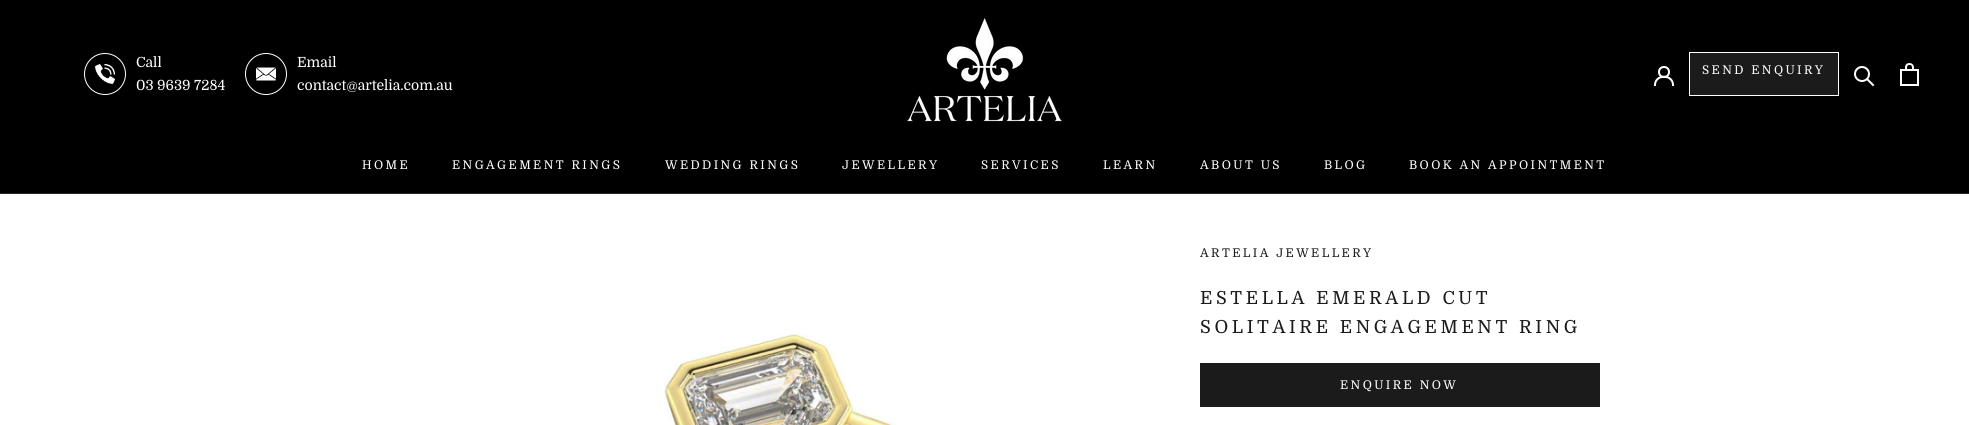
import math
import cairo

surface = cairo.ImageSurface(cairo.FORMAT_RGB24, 1969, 425)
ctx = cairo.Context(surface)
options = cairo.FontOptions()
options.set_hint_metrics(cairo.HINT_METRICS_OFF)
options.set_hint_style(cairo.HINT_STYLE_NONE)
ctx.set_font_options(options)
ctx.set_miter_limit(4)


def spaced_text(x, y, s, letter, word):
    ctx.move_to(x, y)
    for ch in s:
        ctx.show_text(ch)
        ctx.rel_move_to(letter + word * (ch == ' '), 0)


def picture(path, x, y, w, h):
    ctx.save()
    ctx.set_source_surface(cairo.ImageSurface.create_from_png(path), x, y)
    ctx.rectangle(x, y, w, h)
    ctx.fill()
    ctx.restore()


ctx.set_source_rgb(1, 1, 1)
ctx.paint()
ctx.set_source_rgb(0, 0, 0)
ctx.rectangle(0, 0, 1969, 193)
ctx.fill()
ctx.set_source_rgb(0.149, 0.149, 0.149)
ctx.rectangle(0, 193, 1969, 1)
ctx.fill()
picture("img1.png", 907, 18, 155, 104)
ctx.arc(105, 74, 20.5, 0, 2 * math.pi)
ctx.set_source_rgb(1, 1, 1)
ctx.set_line_width(1)
ctx.stroke()
picture("img2.png", 95, 64, 20, 20)
ctx.select_font_face("Domine")
ctx.set_font_size(14)
ctx.move_to(136, 67)
ctx.show_text("Call")
ctx.move_to(136, 90)
ctx.show_text("03 9639 7284")
ctx.new_path()
ctx.arc(266, 74, 20.5, 0, 2 * math.pi)
ctx.stroke()
picture("img3.png", 256, 67, 20, 14)
ctx.move_to(297, 67)
ctx.show_text("Email")
ctx.move_to(297, 90)
ctx.show_text("contact@artelia.com.au")
ctx.set_font_size(12)
spaced_text(362, 169, "HOME", 2.4, 0)
spaced_text(452, 169, "ENGAGEMENT RINGS", 2.4, 0)
spaced_text(665, 169, "WEDDING RINGS", 2.4, 0)
spaced_text(842, 169, "JEWELLERY", 2.4, 0)
spaced_text(981, 169, "SERVICES", 2.4, 0)
spaced_text(1103, 169, "LEARN", 2.4, 0)
spaced_text(1200, 169, "ABOUT US", 2.4, 0)
spaced_text(1324, 169, "BLOG", 2.4, 0)
spaced_text(1409, 169, "BOOK AN APPOINTMENT", 2.4, 0)
ctx.new_path()
ctx.move_to(1655, 85)
ctx.curve_to(1655, 74, 1673, 74, 1673, 85)
ctx.set_line_width(2)
ctx.set_line_cap(cairo.LINE_CAP_SQUARE)
ctx.stroke()
ctx.arc(1664, 72, 5, 0, 2 * math.pi)
ctx.set_line_cap(cairo.LINE_CAP_BUTT)
ctx.stroke()
ctx.rectangle(1689, 52, 150, 44)
ctx.fill()
ctx.set_source_rgb(0.11, 0.106, 0.106)
ctx.rectangle(1690, 53, 148, 42)
ctx.fill()
ctx.set_source_rgb(1, 1, 1)
spaced_text(1702, 74, "SEND ENQUIRY", 2.4, 0)
ctx.new_path()
ctx.move_to(1873, 85)
ctx.line_to(1867.5, 79.5)
ctx.set_line_cap(cairo.LINE_CAP_SQUARE)
ctx.stroke()
ctx.arc(1862, 74, 7, 0, 2 * math.pi)
ctx.set_line_cap(cairo.LINE_CAP_BUTT)
ctx.stroke()
picture("img4.png", 1900, 63, 19, 23)
picture("img5.png", 662, 333, 234, 92)
ctx.set_source_rgb(0.11, 0.106, 0.106)
spaced_text(1200, 257, "ARTELIA JEWELLERY", 2.4, 0)
ctx.set_font_size(18)
spaced_text(1200, 304, "ESTELLA EMERALD CUT", 3.6, 0)
spaced_text(1200, 333, "SOLITAIRE ENGAGEMENT RING", 3.6, 0)
ctx.rectangle(1200.5, 363.5, 399, 43)
ctx.set_line_width(1)
ctx.stroke()
ctx.rectangle(1201, 364, 398, 42)
ctx.fill()
ctx.set_font_size(12)
ctx.set_source_rgb(1, 1, 1)
spaced_text(1340, 389, "ENQUIRE NOW", 2.4, 0)
surface.write_to_png("page.png")
